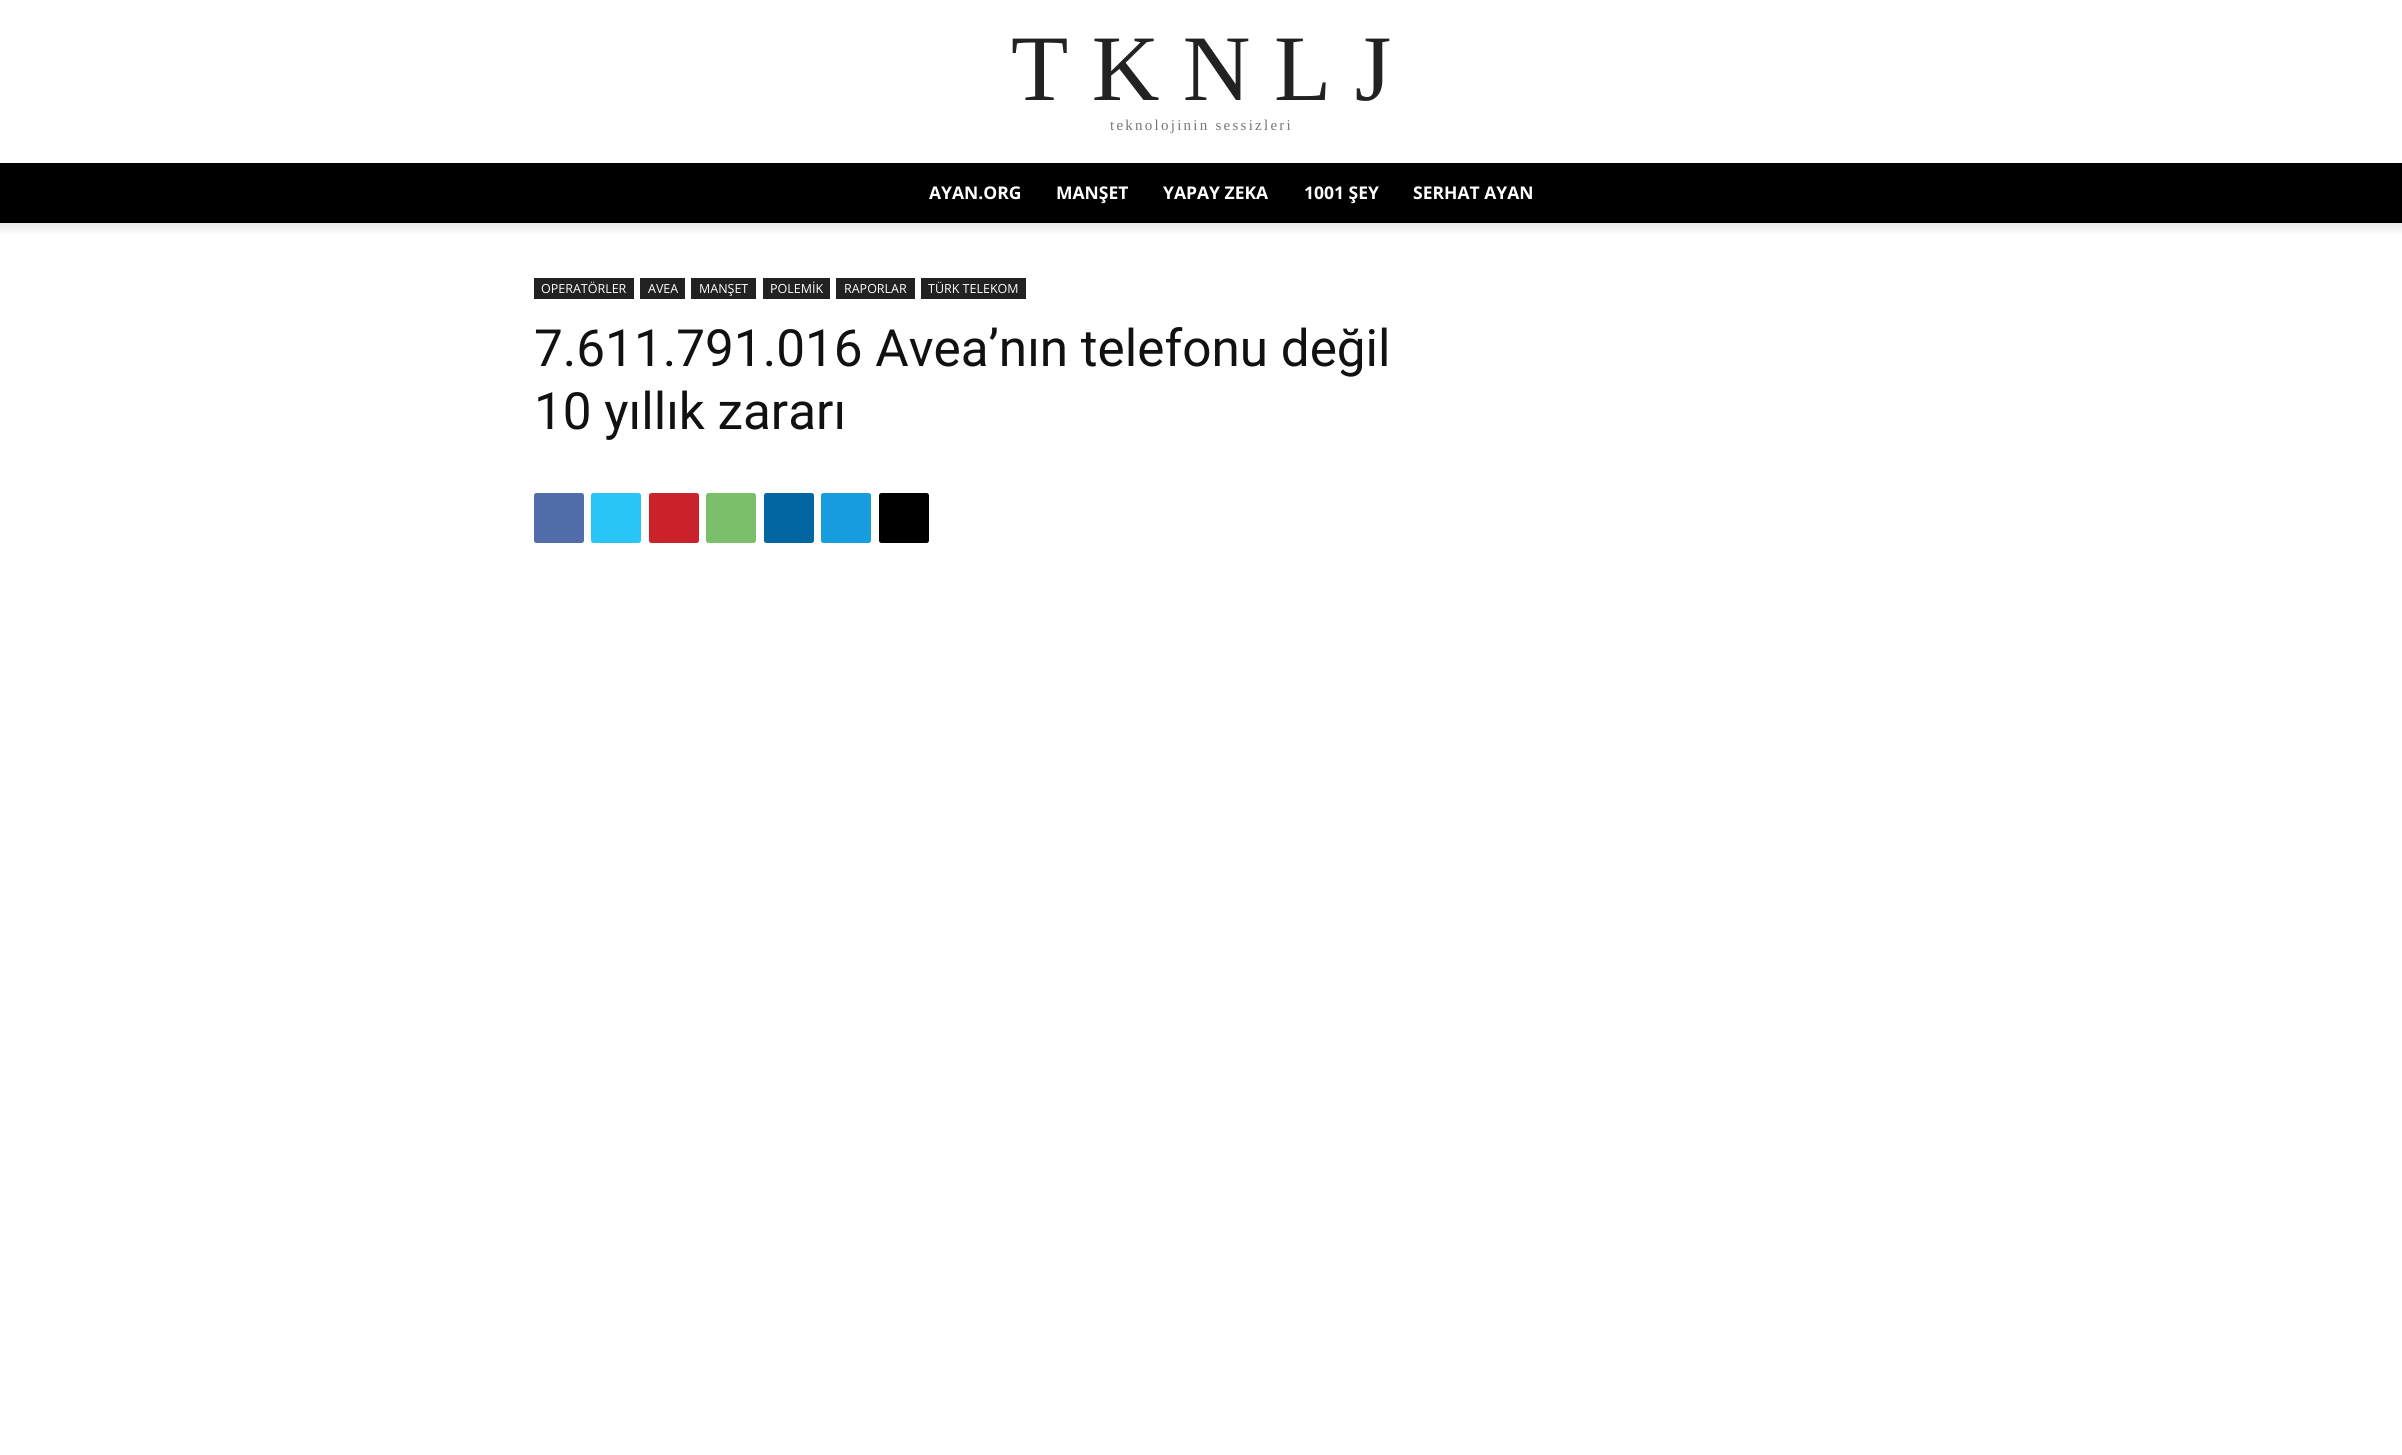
import math
import cairo

surface = cairo.ImageSurface(cairo.FORMAT_RGB24, 2402, 1455)
ctx = cairo.Context(surface)
options = cairo.FontOptions()
options.set_hint_metrics(cairo.HINT_METRICS_OFF)
options.set_hint_style(cairo.HINT_STYLE_NONE)
ctx.set_font_options(options)
ctx.set_miter_limit(4)


def spaced_text(x, y, s, letter, word):
    ctx.move_to(x, y)
    for ch in s:
        ctx.show_text(ch)
        ctx.rel_move_to(letter + word * (ch == ' '), 0)


def round_rect(x, y, w, h, r):
    ctx.new_sub_path()
    for i, (u, v) in enumerate([(x + w - r, y + h - r), (x + r, y + h - r), (x + r, y + r), (x + w - r, y + r)]):
        ctx.arc(u, v, r, i * math.pi / 2, (i + 1) * math.pi / 2)
    ctx.close_path()


def picture(path, x, y, w, h):
    ctx.save()
    ctx.set_source_surface(cairo.ImageSurface.create_from_png(path), x, y)
    ctx.rectangle(x, y, w, h)
    ctx.fill()
    ctx.restore()


ctx.set_source_rgb(1, 1, 1)
ctx.paint()
ctx.select_font_face("Liberation Serif")
ctx.set_font_size(93.75)
ctx.set_source_rgb(0.133, 0.133, 0.133)
ctx.move_to(1011, 100)
ctx.show_text("T K N L J")
ctx.set_font_size(15)
ctx.set_source_rgb(0.467, 0.467, 0.467)
spaced_text(1110, 130, "teknolojinin sessizleri", 2.25, 0)
ctx.set_source_rgb(0, 0, 0)
ctx.rectangle(0, 163, 2402, 60)
ctx.fill()
ctx.select_font_face("Open Sans", cairo.FONT_SLANT_NORMAL, cairo.FONT_WEIGHT_BOLD)
ctx.set_font_size(17.5)
ctx.set_source_rgb(1, 1, 1)
ctx.move_to(929, 199)
ctx.show_text("AYAN.ORG")
ctx.move_to(1056, 199)
ctx.show_text("MANŞET")
ctx.move_to(1163, 199)
ctx.show_text("YAPAY ZEKA")
ctx.move_to(1304, 199)
ctx.show_text("1001 ŞEY")
ctx.move_to(1413, 199)
ctx.show_text("SERHAT AYAN")
picture("img1.png", 0, 223, 2402, 10)
ctx.set_source_rgb(0.133, 0.133, 0.133)
ctx.rectangle(534, 278, 100, 21)
ctx.fill()
ctx.select_font_face("Open Sans")
ctx.set_font_size(12.5)
ctx.set_source_rgb(1, 1, 1)
ctx.move_to(541, 293)
ctx.show_text("OPERATÖRLER")
ctx.set_source_rgb(0.133, 0.133, 0.133)
ctx.rectangle(640, 278, 45, 21)
ctx.fill()
ctx.set_source_rgb(1, 1, 1)
ctx.move_to(648, 293)
ctx.show_text("AVEA")
ctx.set_source_rgb(0.133, 0.133, 0.133)
ctx.rectangle(691, 278, 65, 21)
ctx.fill()
ctx.set_source_rgb(1, 1, 1)
ctx.move_to(699, 293)
ctx.show_text("MANŞET")
ctx.set_source_rgb(0.133, 0.133, 0.133)
ctx.rectangle(763, 278, 67, 21)
ctx.fill()
ctx.set_source_rgb(1, 1, 1)
ctx.move_to(770, 293)
ctx.show_text("POLEMİK")
ctx.set_source_rgb(0.133, 0.133, 0.133)
ctx.rectangle(836, 278, 79, 21)
ctx.fill()
ctx.set_source_rgb(1, 1, 1)
ctx.move_to(844, 293)
ctx.show_text("RAPORLAR")
ctx.set_source_rgb(0.133, 0.133, 0.133)
ctx.rectangle(921, 278, 105, 21)
ctx.fill()
ctx.set_source_rgb(1, 1, 1)
ctx.move_to(928, 293)
ctx.show_text("TÜRK TELEKOM")
ctx.select_font_face("Roboto")
ctx.set_font_size(51.25)
ctx.set_source_rgb(0.067, 0.067, 0.067)
ctx.move_to(534, 366)
ctx.show_text("7.611.791.016 Avea’nın telefonu değil")
ctx.move_to(534, 429)
ctx.show_text("10 yıllık zararı")
ctx.set_source_rgb(0.318, 0.431, 0.671)
round_rect(534, 493, 50, 50, 2.5)
ctx.fill()
ctx.set_source_rgb(0.161, 0.773, 0.965)
round_rect(591, 493, 50, 50, 2.5)
ctx.fill()
ctx.set_source_rgb(0.792, 0.129, 0.165)
round_rect(649, 493, 50, 50, 2.5)
ctx.fill()
ctx.set_source_rgb(0.482, 0.749, 0.416)
round_rect(706, 493, 50, 50, 2.5)
ctx.fill()
ctx.set_source_rgb(0.008, 0.4, 0.627)
round_rect(764, 493, 50, 50, 2.5)
ctx.fill()
ctx.set_source_rgb(0.09, 0.612, 0.871)
round_rect(821, 493, 50, 50, 2.5)
ctx.fill()
ctx.set_source_rgb(0, 0, 0)
round_rect(879, 493, 50, 50, 2.5)
ctx.fill()
surface.write_to_png("page.png")
